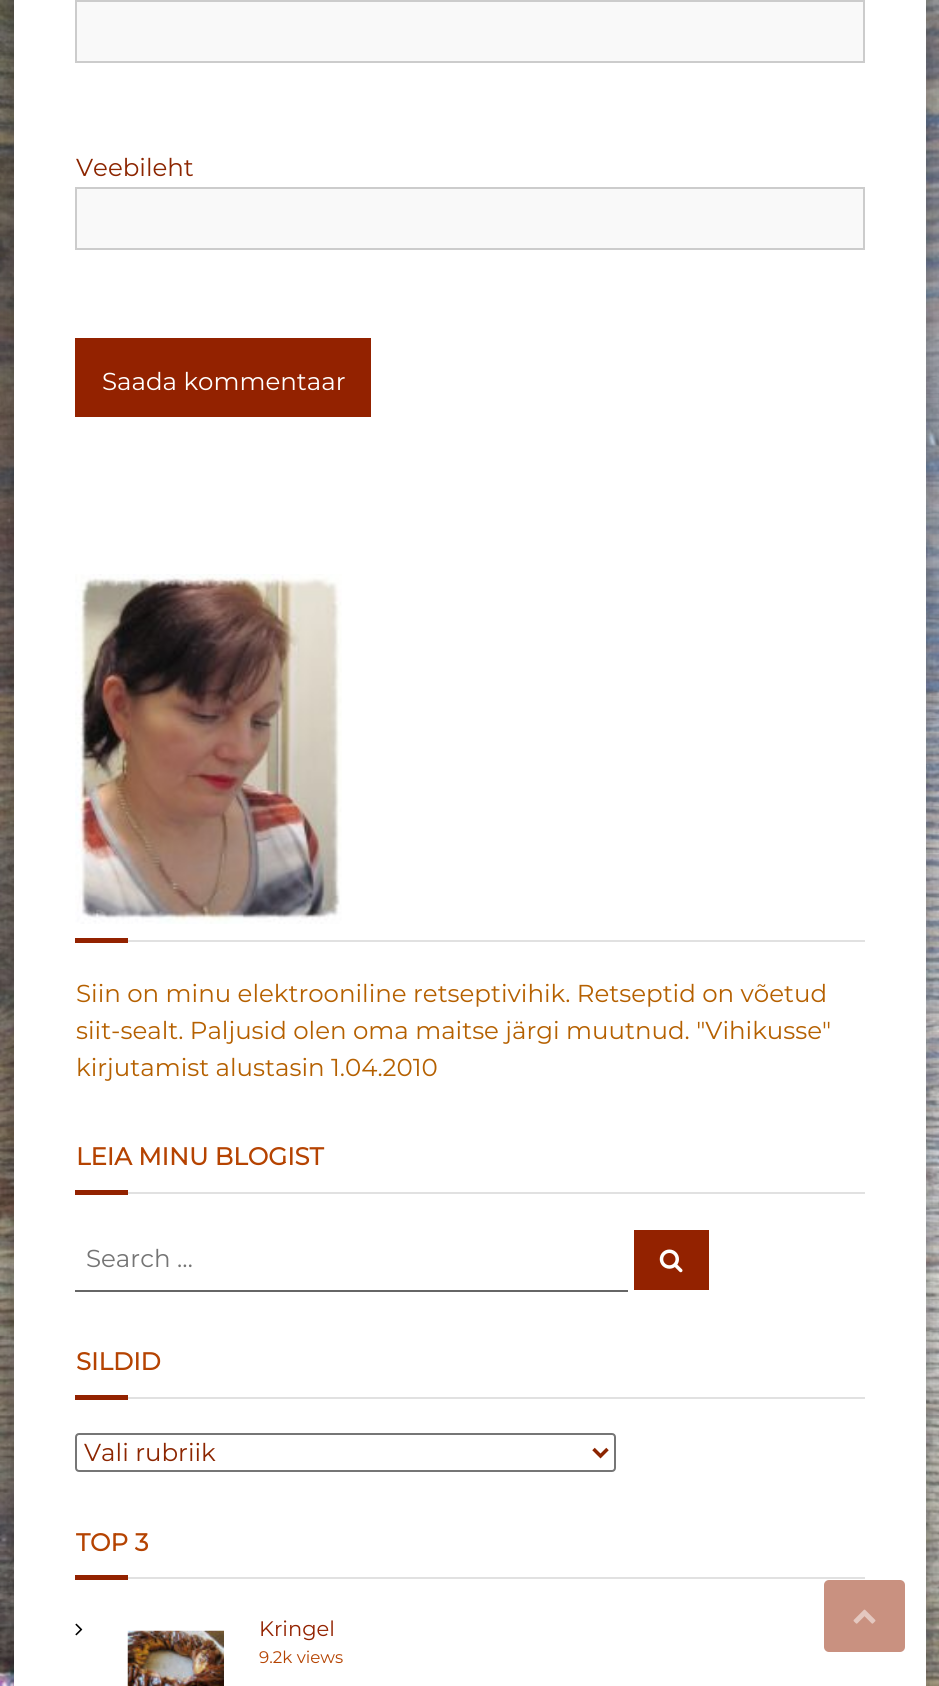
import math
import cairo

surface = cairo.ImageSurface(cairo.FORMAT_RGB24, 939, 1686)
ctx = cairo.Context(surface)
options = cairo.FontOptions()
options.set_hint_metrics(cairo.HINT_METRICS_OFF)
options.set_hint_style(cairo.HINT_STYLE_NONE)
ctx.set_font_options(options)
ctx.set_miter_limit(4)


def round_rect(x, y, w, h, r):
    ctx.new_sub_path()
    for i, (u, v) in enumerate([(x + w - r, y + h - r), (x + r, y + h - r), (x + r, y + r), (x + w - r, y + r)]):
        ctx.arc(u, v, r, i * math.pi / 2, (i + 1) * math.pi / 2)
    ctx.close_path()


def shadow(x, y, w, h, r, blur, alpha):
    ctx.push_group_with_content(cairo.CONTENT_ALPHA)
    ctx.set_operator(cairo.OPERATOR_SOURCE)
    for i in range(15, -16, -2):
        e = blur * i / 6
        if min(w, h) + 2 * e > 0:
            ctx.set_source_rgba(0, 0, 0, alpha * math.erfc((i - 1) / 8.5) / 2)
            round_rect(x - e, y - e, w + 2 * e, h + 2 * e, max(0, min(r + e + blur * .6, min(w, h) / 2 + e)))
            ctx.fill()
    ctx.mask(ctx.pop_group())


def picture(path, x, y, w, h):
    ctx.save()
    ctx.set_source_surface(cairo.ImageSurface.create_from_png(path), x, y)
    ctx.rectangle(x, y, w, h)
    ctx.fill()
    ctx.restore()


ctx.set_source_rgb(1, 1, 1)
ctx.paint()
picture("img1.png", 0, 0, 939, 1686)
ctx.set_source_rgb(0, 0, 0)
shadow(12, -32, 916, 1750, 0, 10.5, 0.3)
ctx.set_source_rgb(1, 1, 1)
ctx.rectangle(14, 0, 912, 1686)
ctx.fill()
ctx.set_source_rgb(0.976, 0.976, 0.976)
ctx.rectangle(76, 1, 788, 61)
ctx.fill_preserve()
ctx.set_source_rgb(0.8, 0.8, 0.8)
ctx.stroke()
ctx.select_font_face("Montserrat Thin")
ctx.set_font_size(24.5)
ctx.set_source_rgb(0.549, 0.145, 0)
ctx.move_to(76, 176)
ctx.show_text("Veebileht")
ctx.set_source_rgb(0.976, 0.976, 0.976)
ctx.rectangle(76, 188, 788, 61)
ctx.fill_preserve()
ctx.set_source_rgb(0.8, 0.8, 0.8)
ctx.stroke()
ctx.set_source_rgb(0.576, 0.133, 0)
ctx.rectangle(75, 338, 296, 79)
ctx.fill()
ctx.set_source_rgb(1, 1, 1)
ctx.move_to(102, 390)
ctx.show_text("Saada kommentaar")
picture("img2.png", 75, 574, 267, 350)
ctx.set_source_rgb(0.576, 0.133, 0)
ctx.rectangle(75, 938, 53, 5)
ctx.fill()
ctx.set_source_rgb(0.882, 0.882, 0.882)
ctx.rectangle(128, 940, 737, 2)
ctx.fill()
ctx.set_source_rgb(0.71, 0.376, 0)
ctx.move_to(76, 1002)
ctx.show_text("Siin on minu elektrooniline retseptivihik. Retseptid on võetud")
ctx.move_to(76, 1039)
ctx.show_text("siit-sealt. Paljusid olen oma maitse järgi muutnud. \"Vihikusse\"")
ctx.move_to(76, 1076)
ctx.show_text("kirjutamist alustasin 1.04.2010")
ctx.select_font_face("Montserrat", cairo.FONT_SLANT_NORMAL, cairo.FONT_WEIGHT_BOLD)
ctx.set_source_rgb(0.71, 0.263, 0.004)
ctx.move_to(76, 1165)
ctx.show_text("LEIA MINU BLOGIST")
ctx.set_source_rgb(0.576, 0.133, 0)
ctx.rectangle(75, 1190, 53, 5)
ctx.fill()
ctx.set_source_rgb(0.882, 0.882, 0.882)
ctx.rectangle(128, 1192, 737, 2)
ctx.fill()
ctx.set_source_rgb(0.4, 0.4, 0.4)
ctx.rectangle(75, 1290, 553, 2)
ctx.fill()
ctx.select_font_face("Montserrat Thin")
ctx.set_source_rgb(0.459, 0.459, 0.459)
ctx.move_to(86, 1267)
ctx.show_text("Search …")
ctx.set_source_rgb(0.576, 0.133, 0)
ctx.rectangle(634, 1230, 75, 60)
ctx.fill()
picture("img3.png", 659, 1249, 24, 24)
ctx.select_font_face("Montserrat", cairo.FONT_SLANT_NORMAL, cairo.FONT_WEIGHT_BOLD)
ctx.set_source_rgb(0.71, 0.263, 0.004)
ctx.move_to(76, 1370)
ctx.show_text("SILDID")
ctx.set_source_rgb(0.576, 0.133, 0)
ctx.rectangle(75, 1395, 53, 5)
ctx.fill()
ctx.set_source_rgb(0.882, 0.882, 0.882)
ctx.rectangle(128, 1397, 737, 2)
ctx.fill()
round_rect(76, 1434, 539, 37, 3)
ctx.set_source_rgb(0.463, 0.463, 0.463)
ctx.stroke()
ctx.new_path()
ctx.move_to(593.5, 1449)
ctx.line_to(600.5, 1456)
ctx.line_to(607.5, 1449)
ctx.set_source_rgb(0.549, 0.145, 0)
ctx.set_line_width(3.5)
ctx.stroke()
ctx.select_font_face("Montserrat Thin")
ctx.move_to(84, 1461)
ctx.show_text("Vali rubriik")
ctx.select_font_face("Montserrat", cairo.FONT_SLANT_NORMAL, cairo.FONT_WEIGHT_BOLD)
ctx.set_source_rgb(0.71, 0.263, 0.004)
ctx.move_to(76, 1551)
ctx.show_text("TOP 3")
ctx.set_source_rgb(0.576, 0.133, 0)
ctx.rectangle(75, 1575, 53, 5)
ctx.fill()
ctx.set_source_rgb(0.882, 0.882, 0.882)
ctx.rectangle(128, 1577, 737, 2)
ctx.fill()
picture("img4.png", 75, 1623, 8, 13)
picture("img5.png", 127, 1630, 97, 56)
ctx.select_font_face("Montserrat Thin")
ctx.set_font_size(21)
ctx.set_source_rgb(0.576, 0.133, 0)
ctx.move_to(259, 1636)
ctx.show_text("Kringel")
ctx.set_font_size(16.75)
ctx.set_source_rgb(0.71, 0.263, 0.004)
ctx.move_to(259, 1663)
ctx.show_text("9.2k views")
ctx.set_source_rgb(0.788, 0.569, 0.502)
round_rect(824, 1580, 81, 72, 5)
ctx.fill()
picture("img6.png", 853, 1609, 23, 15)
surface.write_to_png("page.png")
